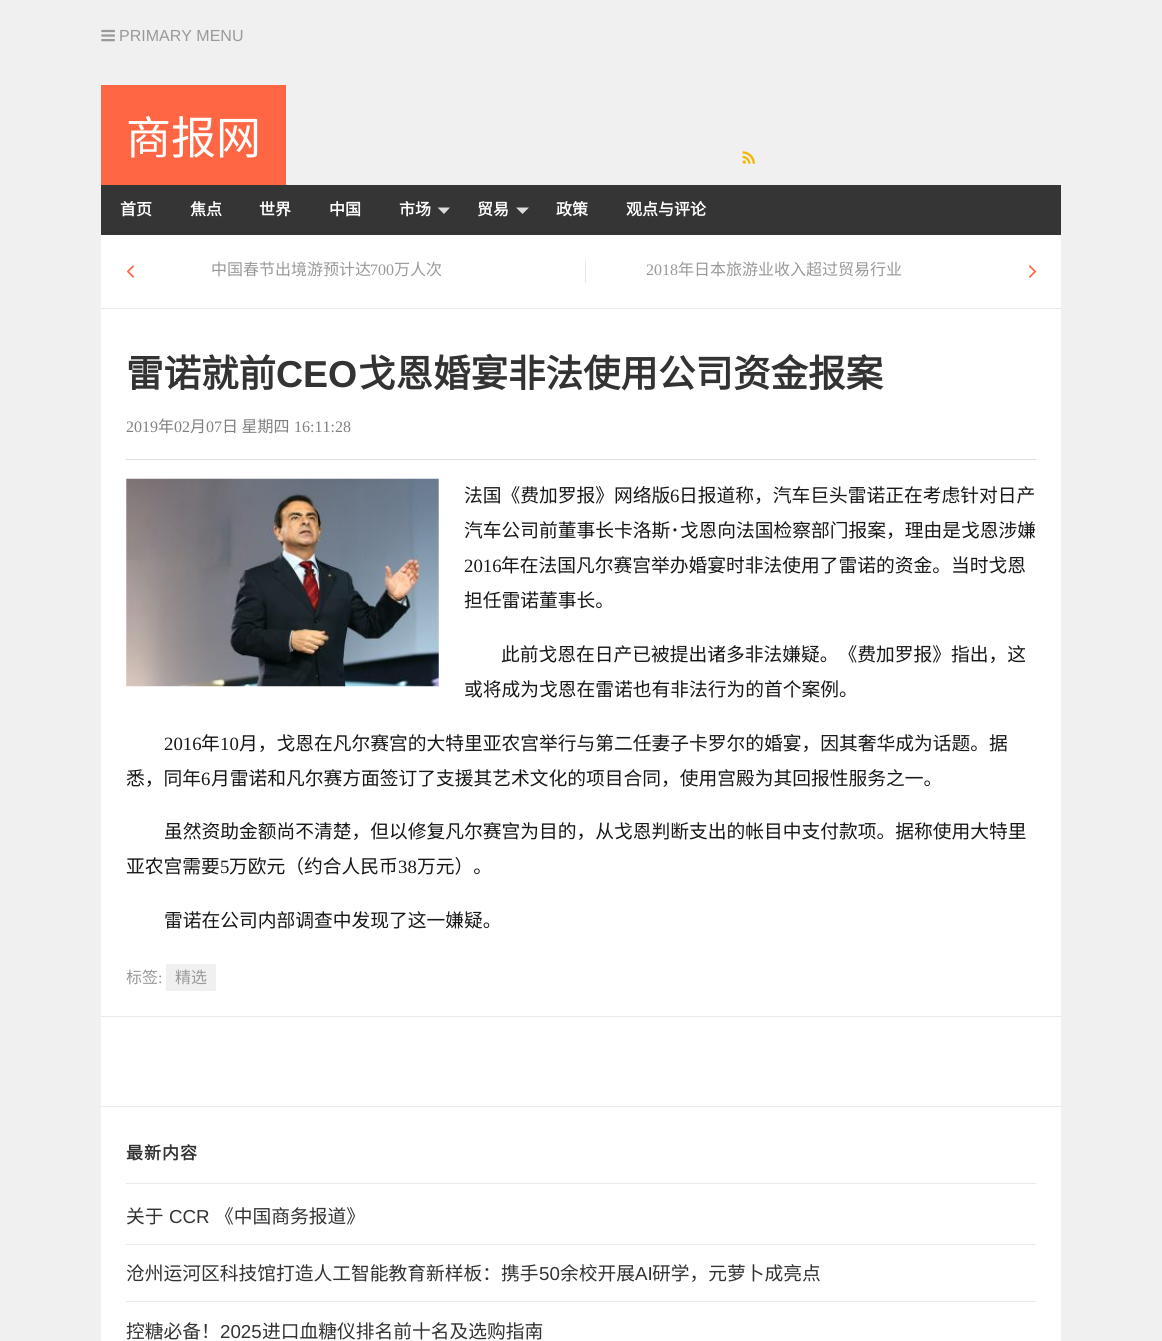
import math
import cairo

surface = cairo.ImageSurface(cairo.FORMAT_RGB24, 1162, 1341)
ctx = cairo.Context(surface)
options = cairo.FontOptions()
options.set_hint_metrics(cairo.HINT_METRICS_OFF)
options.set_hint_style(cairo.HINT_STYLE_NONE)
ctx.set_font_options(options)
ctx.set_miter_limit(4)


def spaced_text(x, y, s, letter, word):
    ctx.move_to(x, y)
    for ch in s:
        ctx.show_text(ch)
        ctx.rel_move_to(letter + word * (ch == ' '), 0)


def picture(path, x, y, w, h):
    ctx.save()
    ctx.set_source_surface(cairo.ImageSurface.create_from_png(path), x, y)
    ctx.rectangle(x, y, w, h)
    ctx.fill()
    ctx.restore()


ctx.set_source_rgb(0.941, 0.941, 0.941)
ctx.paint()
picture("img1.png", 101, 29, 14, 13)
ctx.select_font_face("Liberation Sans")
ctx.set_font_size(16)
ctx.set_source_rgb(0.6, 0.6, 0.6)
ctx.move_to(119, 41)
ctx.show_text("PRIMARY MENU")
ctx.set_source_rgb(1, 0.4, 0.267)
ctx.rectangle(101, 85, 185, 100)
ctx.fill()
ctx.select_font_face("Noto Sans CJK SC")
ctx.set_font_size(45)
ctx.set_source_rgb(1, 1, 1)
ctx.move_to(126, 154)
ctx.show_text("商报网")
picture("img2.png", 742, 151, 13, 13)
ctx.set_source_rgb(0.208, 0.208, 0.208)
ctx.rectangle(101, 185, 960, 50)
ctx.fill()
ctx.select_font_face("Noto Sans CJK SC", cairo.FONT_SLANT_NORMAL, cairo.FONT_WEIGHT_BOLD)
ctx.set_font_size(16)
ctx.set_source_rgb(1, 1, 1)
ctx.move_to(120, 215)
ctx.show_text("首页")
ctx.move_to(190, 215)
ctx.show_text("焦点")
ctx.move_to(259, 215)
ctx.show_text("世界")
ctx.move_to(329, 215)
ctx.show_text("中国")
ctx.move_to(399, 215)
ctx.show_text("市场")
ctx.set_source_rgb(0.867, 0.867, 0.867)
ctx.new_path()
ctx.move_to(437.5, 207.5)
ctx.line_to(450, 207.5)
ctx.line_to(444, 214)
ctx.close_path()
ctx.fill()
ctx.set_source_rgb(1, 1, 1)
ctx.move_to(477, 215)
ctx.show_text("贸易")
ctx.set_source_rgb(0.867, 0.867, 0.867)
ctx.new_path()
ctx.move_to(516, 207.5)
ctx.line_to(529, 207.5)
ctx.line_to(522.5, 214)
ctx.close_path()
ctx.fill()
ctx.set_source_rgb(1, 1, 1)
ctx.move_to(556, 215)
ctx.show_text("政策")
ctx.move_to(626, 215)
ctx.show_text("观点与评论")
ctx.rectangle(101, 235, 960, 1106)
ctx.fill()
ctx.set_source_rgb(0.914, 0.914, 0.914)
ctx.rectangle(101, 308, 960, 1)
ctx.fill()
picture("img3.png", 126, 265, 9, 13)
ctx.select_font_face("Noto Sans CJK SC")
ctx.set_source_rgb(0.6, 0.6, 0.6)
ctx.move_to(211, 275)
ctx.show_text("中国春节出境游预计达")
ctx.select_font_face("Liberation Serif")
ctx.move_to(370, 275)
ctx.show_text("700")
ctx.select_font_face("Noto Sans CJK SC")
ctx.move_to(394, 275)
ctx.show_text("万人次")
ctx.set_source_rgb(0.914, 0.914, 0.914)
ctx.rectangle(585, 260, 1, 23)
ctx.fill()
ctx.select_font_face("Liberation Serif")
ctx.set_source_rgb(0.6, 0.6, 0.6)
ctx.move_to(646, 275)
ctx.show_text("2018")
ctx.select_font_face("Noto Sans CJK SC")
ctx.move_to(678, 275)
ctx.show_text("年日本旅游业收入超过贸易行业")
picture("img4.png", 1029, 265, 8, 13)
ctx.set_source_rgb(0.914, 0.914, 0.914)
ctx.rectangle(101, 1016, 960, 1)
ctx.fill()
ctx.select_font_face("Noto Sans CJK SC", cairo.FONT_SLANT_NORMAL, cairo.FONT_WEIGHT_BOLD)
ctx.set_font_size(37.5)
ctx.set_source_rgb(0.2, 0.2, 0.2)
ctx.move_to(126, 387)
ctx.show_text("雷诺就前")
ctx.select_font_face("Liberation Sans", cairo.FONT_SLANT_NORMAL, cairo.FONT_WEIGHT_BOLD)
ctx.move_to(276, 387)
ctx.show_text("CEO")
ctx.select_font_face("Noto Sans CJK SC", cairo.FONT_SLANT_NORMAL, cairo.FONT_WEIGHT_BOLD)
ctx.move_to(358, 387)
ctx.show_text("戈恩婚宴非法使用公司资金报案")
ctx.select_font_face("Liberation Serif")
ctx.set_font_size(16)
ctx.set_source_rgb(0.502, 0.502, 0.502)
ctx.move_to(126, 432)
ctx.show_text("2019")
ctx.select_font_face("Noto Sans CJK SC")
ctx.move_to(158, 432)
ctx.show_text("年")
ctx.select_font_face("Liberation Serif")
ctx.move_to(174, 432)
ctx.show_text("02")
ctx.select_font_face("Noto Sans CJK SC")
ctx.move_to(190, 432)
ctx.show_text("月")
ctx.select_font_face("Liberation Serif")
ctx.move_to(206, 432)
ctx.show_text("07")
ctx.select_font_face("Noto Sans CJK SC")
ctx.move_to(222, 432)
ctx.show_text("日 星期四")
ctx.select_font_face("Liberation Serif")
ctx.move_to(294, 432)
ctx.show_text("16:11:28")
ctx.set_source_rgb(0.867, 0.867, 0.867)
ctx.rectangle(126, 459, 910, 1)
ctx.fill()
picture("img5.png", 126, 478, 313, 209)
ctx.select_font_face("Noto Sans CJK SC")
ctx.set_font_size(18.75)
ctx.set_source_rgb(0.09, 0.09, 0.09)
ctx.move_to(464, 502)
ctx.show_text("法国《费加罗报》网络版")
ctx.select_font_face("Liberation Serif")
ctx.move_to(670, 502)
ctx.show_text("6")
ctx.select_font_face("Noto Sans CJK SC")
ctx.move_to(679, 502)
ctx.show_text("日报道称，汽车巨头雷诺正在考虑针对日产")
ctx.move_to(464, 537)
ctx.show_text("汽车公司前董事长卡洛斯･戈恩向法国检察部门报案，理由是戈恩涉嫌")
ctx.select_font_face("Liberation Serif")
ctx.move_to(464, 572)
ctx.show_text("2016")
ctx.select_font_face("Noto Sans CJK SC")
ctx.move_to(501, 572)
ctx.show_text("年在法国凡尔赛宫举办婚宴时非法使用了雷诺的资金。当时戈恩")
ctx.move_to(464, 607)
ctx.show_text("担任雷诺董事长。")
ctx.move_to(501, 661)
ctx.show_text("此前戈恩在日产已被提出诸多非法嫌疑。《费加罗报》指出，这")
ctx.move_to(464, 696)
ctx.show_text("或将成为戈恩在雷诺也有非法行为的首个案例。")
ctx.select_font_face("Liberation Serif")
ctx.move_to(164, 750)
ctx.show_text("2016")
ctx.select_font_face("Noto Sans CJK SC")
ctx.move_to(201, 750)
ctx.show_text("年")
ctx.select_font_face("Liberation Serif")
ctx.move_to(220, 750)
ctx.show_text("10")
ctx.select_font_face("Noto Sans CJK SC")
ctx.move_to(239, 750)
ctx.show_text("月，戈恩在凡尔赛宫的大特里亚农宫举行与第二任妻子卡罗尔的婚宴，因其奢华成为话题。据")
ctx.move_to(126, 785)
ctx.show_text("悉，同年")
ctx.select_font_face("Liberation Serif")
ctx.move_to(201, 785)
ctx.show_text("6")
ctx.select_font_face("Noto Sans CJK SC")
ctx.move_to(211, 785)
ctx.show_text("月雷诺和凡尔赛方面签订了支援其艺术文化的项目合同，使用宫殿为其回报性服务之一。")
ctx.move_to(164, 838)
ctx.show_text("虽然资助金额尚不清楚，但以修复凡尔赛宫为目的，从戈恩判断支出的帐目中支付款项。据称使用大特里")
ctx.move_to(126, 873)
ctx.show_text("亚农宫需要")
ctx.select_font_face("Liberation Serif")
ctx.move_to(220, 873)
ctx.show_text("5")
ctx.select_font_face("Noto Sans CJK SC")
ctx.move_to(229, 873)
ctx.show_text("万欧元（约合人民币")
ctx.select_font_face("Liberation Serif")
ctx.move_to(398, 873)
ctx.show_text("38")
ctx.select_font_face("Noto Sans CJK SC")
ctx.move_to(417, 873)
ctx.show_text("万元）。")
ctx.move_to(164, 927)
ctx.show_text("雷诺在公司内部调查中发现了这一嫌疑。")
ctx.set_font_size(16)
ctx.set_source_rgb(0.6, 0.6, 0.6)
ctx.move_to(126, 983)
ctx.show_text("标签")
ctx.select_font_face("Liberation Serif")
ctx.move_to(158, 983)
ctx.show_text(":")
ctx.set_source_rgb(0.941, 0.941, 0.941)
ctx.rectangle(166, 964, 50, 27)
ctx.fill()
ctx.select_font_face("Noto Sans CJK SC")
ctx.set_source_rgb(0.6, 0.6, 0.6)
ctx.move_to(175, 983)
ctx.show_text("精选")
ctx.set_source_rgb(0.914, 0.914, 0.914)
ctx.rectangle(101, 1106, 960, 1)
ctx.fill()
ctx.rectangle(126, 1183, 910, 1)
ctx.fill()
ctx.select_font_face("Noto Sans CJK SC", cairo.FONT_SLANT_NORMAL, cairo.FONT_WEIGHT_BOLD)
ctx.set_font_size(17)
ctx.set_source_rgb(0.2, 0.2, 0.2)
spaced_text(126, 1159, "最新内容", 1, 0)
ctx.set_source_rgb(0.914, 0.914, 0.914)
ctx.rectangle(126, 1244, 910, 1)
ctx.fill()
ctx.select_font_face("Noto Sans CJK SC")
ctx.set_font_size(18.75)
ctx.set_source_rgb(0.2, 0.2, 0.2)
ctx.move_to(126, 1223)
ctx.show_text("关于")
ctx.select_font_face("Liberation Sans")
ctx.move_to(169, 1223)
ctx.show_text("CCR")
ctx.select_font_face("Noto Sans CJK SC")
ctx.move_to(215, 1223)
ctx.show_text("《中国商务报道》")
ctx.set_source_rgb(0.914, 0.914, 0.914)
ctx.rectangle(126, 1301, 910, 1)
ctx.fill()
ctx.set_source_rgb(0.2, 0.2, 0.2)
ctx.move_to(126, 1280)
ctx.show_text("沧州运河区科技馆打造人工智能教育新样板：携手")
ctx.select_font_face("Liberation Sans")
ctx.move_to(539, 1280)
ctx.show_text("50")
ctx.select_font_face("Noto Sans CJK SC")
ctx.move_to(560, 1280)
ctx.show_text("余校开展")
ctx.select_font_face("Liberation Sans")
ctx.move_to(635, 1280)
ctx.show_text("AI")
ctx.select_font_face("Noto Sans CJK SC")
ctx.move_to(652, 1280)
ctx.show_text("研学，元萝卜成亮点")
ctx.move_to(126, 1338)
ctx.show_text("控糖必备！")
ctx.select_font_face("Liberation Sans")
ctx.move_to(220, 1338)
ctx.show_text("2025")
ctx.select_font_face("Noto Sans CJK SC")
ctx.move_to(262, 1338)
ctx.show_text("进口血糖仪排名前十名及选购指南")
surface.write_to_png("page.png")
